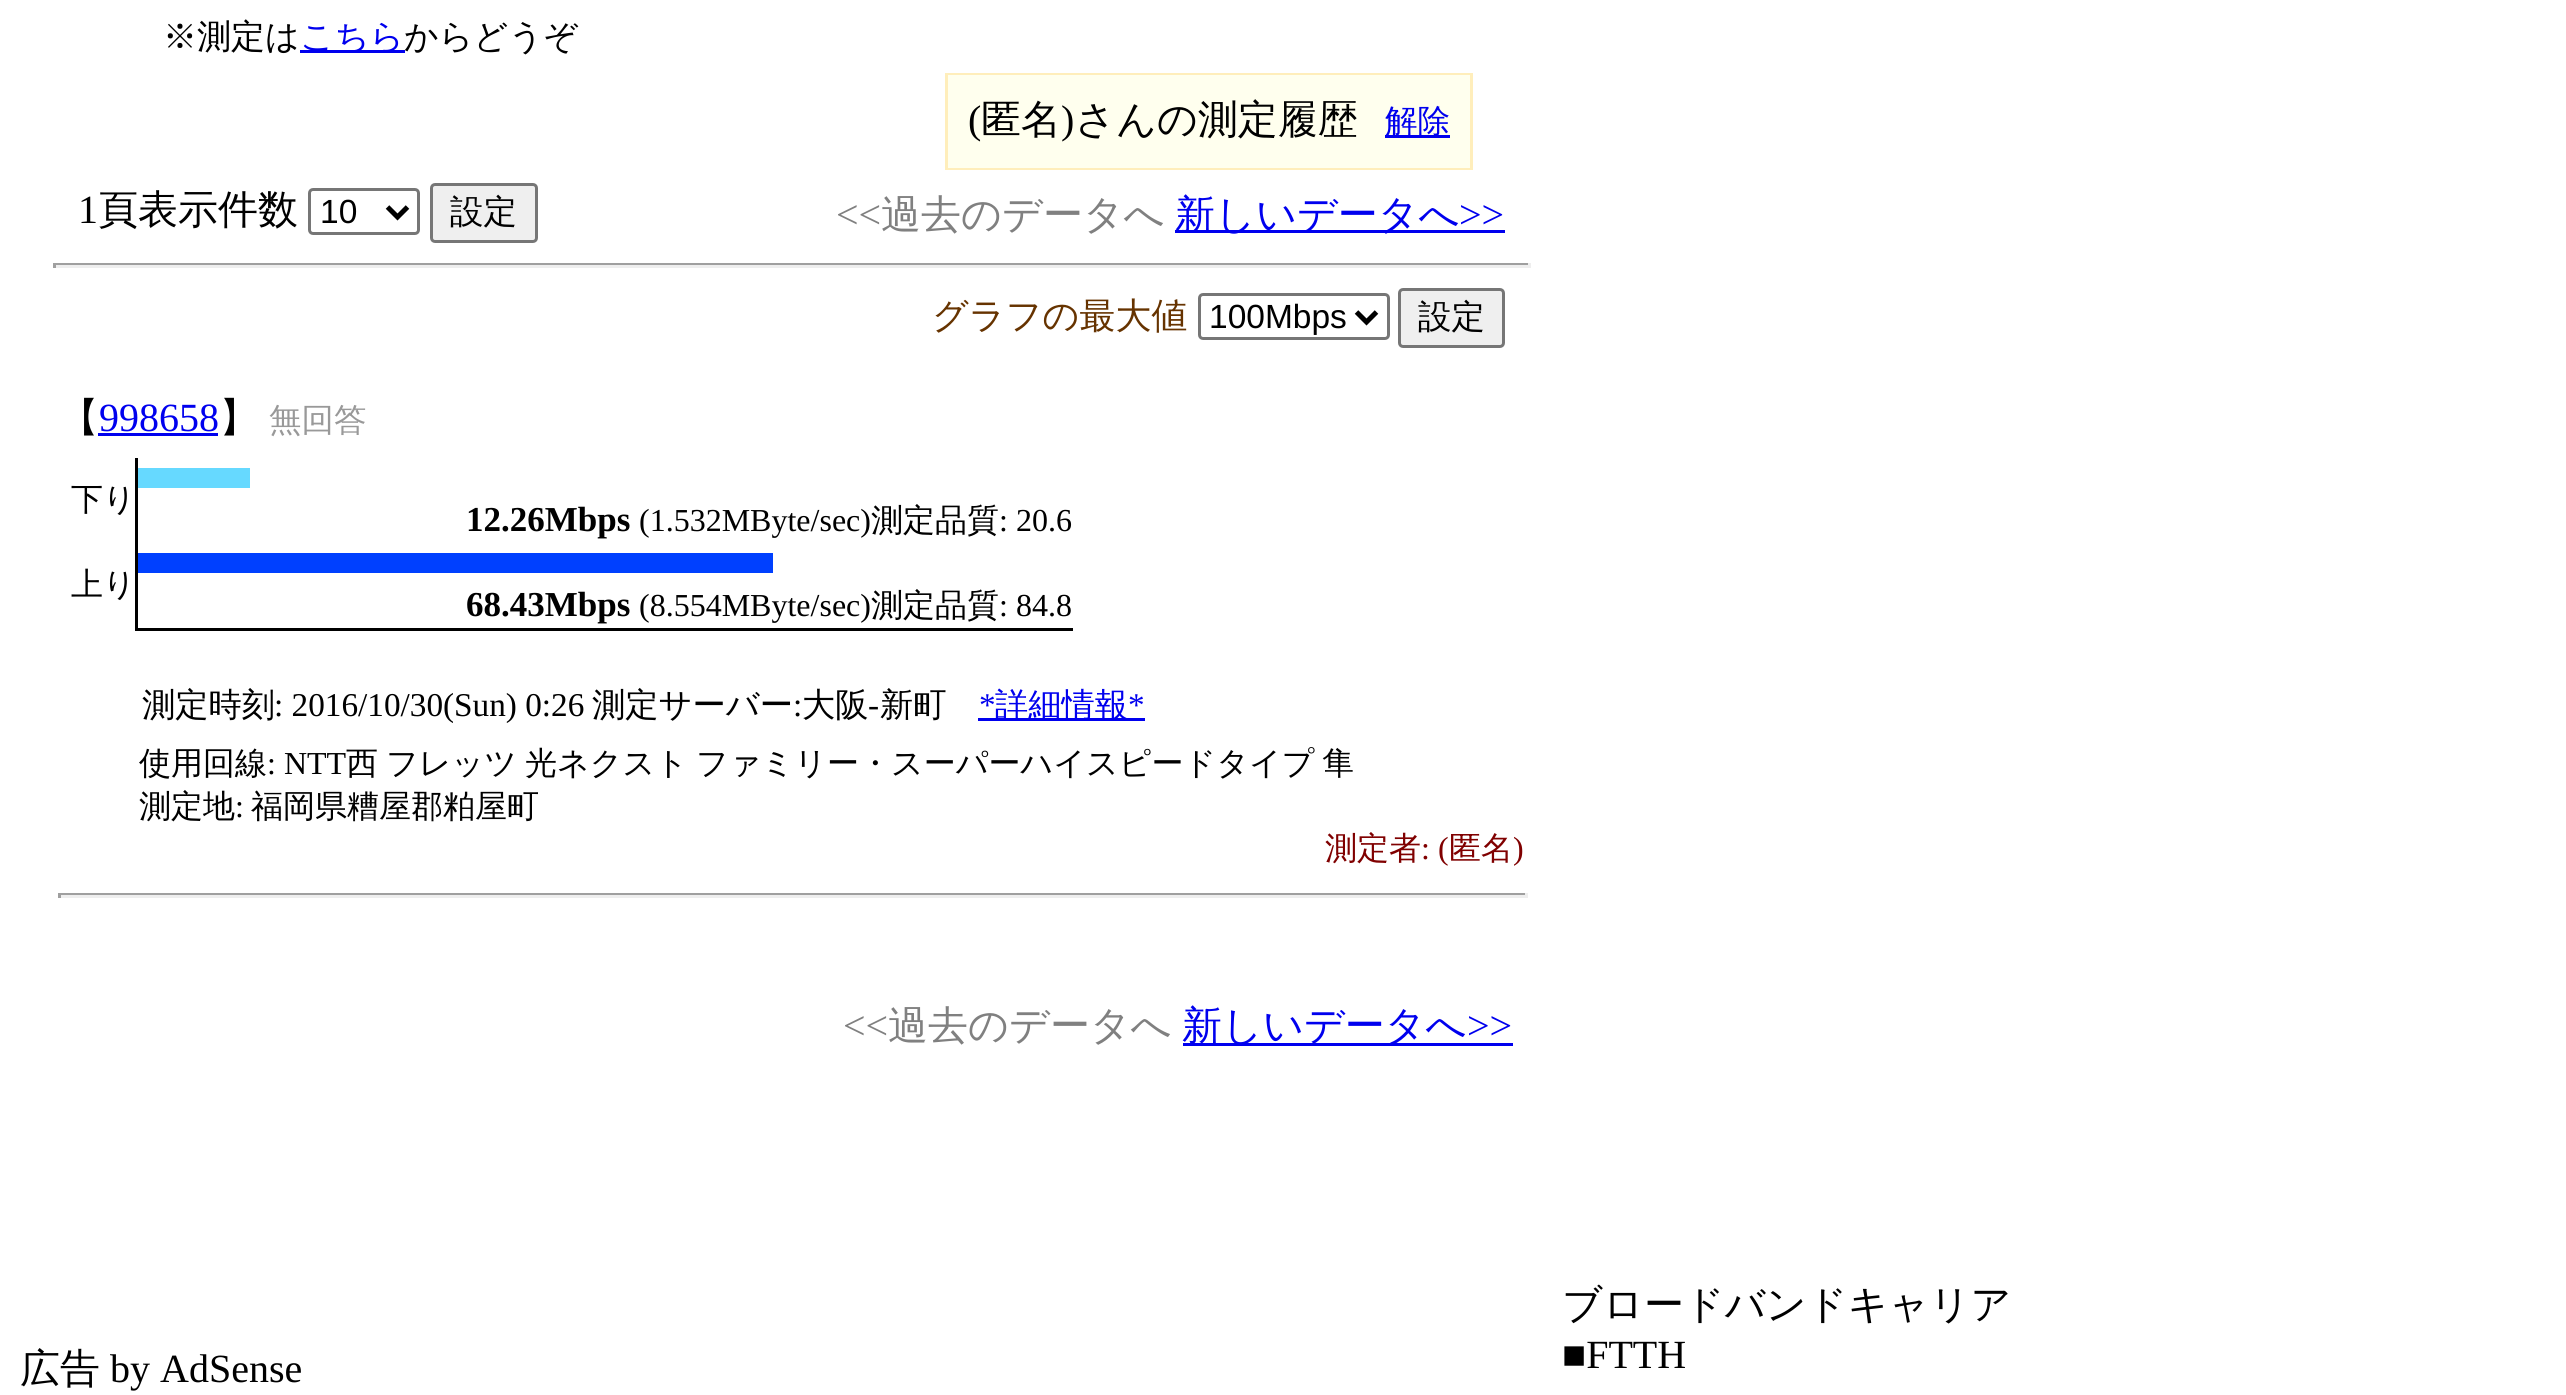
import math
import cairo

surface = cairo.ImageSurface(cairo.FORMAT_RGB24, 2566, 1395)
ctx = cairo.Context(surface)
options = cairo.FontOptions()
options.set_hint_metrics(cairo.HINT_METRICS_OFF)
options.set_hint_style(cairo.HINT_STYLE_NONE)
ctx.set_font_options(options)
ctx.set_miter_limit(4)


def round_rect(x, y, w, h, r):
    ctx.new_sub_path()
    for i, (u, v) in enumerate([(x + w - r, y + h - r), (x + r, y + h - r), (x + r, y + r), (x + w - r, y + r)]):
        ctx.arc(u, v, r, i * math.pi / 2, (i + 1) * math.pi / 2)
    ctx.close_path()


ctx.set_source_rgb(1, 1, 1)
ctx.paint()
ctx.select_font_face("WenQuanYi Zen Hei Medium")
ctx.set_font_size(34)
ctx.set_source_rgb(0, 0, 0)
ctx.move_to(163, 48)
ctx.show_text("※測定は")
ctx.set_source_rgb(0, 0, 0.933)
ctx.rectangle(300, 50, 105, 3)
ctx.fill()
ctx.move_to(300, 48)
ctx.show_text("こちら")
ctx.set_source_rgb(0, 0, 0)
ctx.move_to(404, 48)
ctx.show_text("からどうぞ")
ctx.set_source_rgb(1, 0.933, 0.733)
ctx.rectangle(945, 73, 528, 97)
ctx.fill()
ctx.set_source_rgb(1, 1, 0.933)
ctx.rectangle(948, 75, 522, 93)
ctx.fill()
ctx.select_font_face("Liberation Serif")
ctx.set_font_size(40)
ctx.set_source_rgb(0, 0, 0)
ctx.move_to(968, 133)
ctx.show_text("(")
ctx.select_font_face("WenQuanYi Zen Hei Medium")
ctx.move_to(981, 133)
ctx.show_text("匿名")
ctx.select_font_face("Liberation Serif")
ctx.move_to(1061, 133)
ctx.show_text(")")
ctx.select_font_face("WenQuanYi Zen Hei Medium")
ctx.move_to(1075, 133)
ctx.show_text("さんの測定履歴")
ctx.set_source_rgb(0, 0, 0.933)
ctx.rectangle(1385, 135, 65, 3)
ctx.fill()
ctx.set_font_size(32.5)
ctx.move_to(1385, 132)
ctx.show_text("解除")
ctx.select_font_face("Liberation Serif")
ctx.set_font_size(40)
ctx.set_source_rgb(0, 0, 0)
ctx.move_to(78, 223)
ctx.show_text("1")
ctx.select_font_face("WenQuanYi Zen Hei Medium")
ctx.move_to(98, 223)
ctx.show_text("頁表示件数")
round_rect(309.5, 189.5, 109, 44, 3.5)
ctx.set_source_rgb(0.463, 0.463, 0.463)
ctx.set_line_width(3)
ctx.stroke()
ctx.new_path()
ctx.move_to(387.5, 207)
ctx.line_to(397.5, 217)
ctx.line_to(407.5, 207)
ctx.set_source_rgb(0, 0, 0)
ctx.set_line_width(5)
ctx.stroke()
ctx.select_font_face("Liberation Sans")
ctx.set_font_size(33.5)
ctx.move_to(320, 223)
ctx.show_text("10")
ctx.set_source_rgb(0.937, 0.937, 0.937)
round_rect(431.5, 184.5, 105, 57, 3.5)
ctx.fill_preserve()
ctx.set_source_rgb(0.463, 0.463, 0.463)
ctx.set_line_width(3)
ctx.stroke()
ctx.select_font_face("WenQuanYi Zen Hei Medium")
ctx.set_source_rgb(0, 0, 0)
ctx.move_to(450, 223)
ctx.show_text("設定")
ctx.select_font_face("Liberation Serif")
ctx.set_font_size(40)
ctx.set_source_rgb(0.502, 0.502, 0.502)
ctx.move_to(836, 228)
ctx.show_text("<<")
ctx.select_font_face("WenQuanYi Zen Hei Medium")
ctx.move_to(881, 228)
ctx.show_text("過去のデータへ")
ctx.set_source_rgb(0, 0, 0.933)
ctx.rectangle(1175, 230, 330, 3)
ctx.fill()
ctx.move_to(1175, 228)
ctx.show_text("新しいデータへ")
ctx.select_font_face("Liberation Serif")
ctx.move_to(1459, 228)
ctx.show_text(">>")
ctx.set_source_rgb(0.624, 0.624, 0.624)
ctx.rectangle(53, 263, 1477, 2)
ctx.fill()
ctx.set_source_rgb(0.933, 0.933, 0.933)
ctx.rectangle(1528, 263, 3, 5)
ctx.fill()
ctx.rectangle(53, 265, 1477, 3)
ctx.fill()
ctx.set_source_rgb(0.624, 0.624, 0.624)
ctx.rectangle(53, 263, 3, 5)
ctx.fill()
ctx.select_font_face("WenQuanYi Zen Hei Medium")
ctx.set_font_size(36)
ctx.set_source_rgb(0.4, 0.2, 0)
ctx.move_to(932, 328)
ctx.show_text("グラフの最大値")
round_rect(1199.5, 294.5, 189, 44, 3.5)
ctx.set_source_rgb(0.463, 0.463, 0.463)
ctx.stroke()
ctx.new_path()
ctx.move_to(1356.5, 312)
ctx.line_to(1366.5, 322)
ctx.line_to(1376.5, 312)
ctx.set_source_rgb(0, 0, 0)
ctx.set_line_width(5)
ctx.stroke()
ctx.select_font_face("Liberation Sans")
ctx.set_font_size(33.5)
ctx.move_to(1209, 328)
ctx.show_text("100Mbps")
ctx.set_source_rgb(0.937, 0.937, 0.937)
round_rect(1399.5, 289.5, 104, 57, 3.5)
ctx.fill_preserve()
ctx.set_source_rgb(0.463, 0.463, 0.463)
ctx.set_line_width(3)
ctx.stroke()
ctx.select_font_face("WenQuanYi Zen Hei Medium")
ctx.set_source_rgb(0, 0, 0)
ctx.move_to(1418, 328)
ctx.show_text("設定")
ctx.set_font_size(40)
ctx.move_to(59, 431)
ctx.show_text("【")
ctx.select_font_face("Liberation Serif")
ctx.set_source_rgb(0, 0, 0.933)
ctx.move_to(99, 431)
ctx.show_text("998658")
ctx.rectangle(98, 433, 120, 3)
ctx.fill()
ctx.select_font_face("WenQuanYi Zen Hei Medium")
ctx.set_source_rgb(0, 0, 0)
ctx.move_to(219, 431)
ctx.show_text("】")
ctx.set_font_size(32.5)
ctx.set_source_rgb(0.6, 0.6, 0.6)
ctx.move_to(269, 431)
ctx.show_text("無回答")
ctx.set_font_size(32)
ctx.set_source_rgb(0, 0, 0)
ctx.move_to(71, 510)
ctx.show_text("下り")
ctx.rectangle(135, 458, 3, 173)
ctx.fill()
ctx.set_source_rgb(0.4, 0.851, 1)
ctx.rectangle(138, 468, 112, 20)
ctx.fill()
ctx.select_font_face("Liberation Serif", cairo.FONT_SLANT_NORMAL, cairo.FONT_WEIGHT_BOLD)
ctx.set_font_size(35)
ctx.set_source_rgb(0, 0, 0)
ctx.move_to(466, 531)
ctx.show_text("12.26Mbps")
ctx.select_font_face("Liberation Serif")
ctx.set_font_size(32)
ctx.move_to(639, 531)
ctx.show_text("(1.532MByte/sec)")
ctx.select_font_face("WenQuanYi Zen Hei Medium")
ctx.move_to(871, 531)
ctx.show_text("測定品質")
ctx.select_font_face("Liberation Serif")
ctx.move_to(999, 531)
ctx.show_text(": 20.6")
ctx.select_font_face("WenQuanYi Zen Hei Medium")
ctx.move_to(71, 595)
ctx.show_text("上り")
ctx.set_source_rgb(0, 0.251, 1)
ctx.rectangle(138, 553, 635, 20)
ctx.fill()
ctx.select_font_face("Liberation Serif", cairo.FONT_SLANT_NORMAL, cairo.FONT_WEIGHT_BOLD)
ctx.set_font_size(35)
ctx.set_source_rgb(0, 0, 0)
ctx.move_to(466, 616)
ctx.show_text("68.43Mbps")
ctx.select_font_face("Liberation Serif")
ctx.set_font_size(32)
ctx.move_to(639, 616)
ctx.show_text("(8.554MByte/sec)")
ctx.select_font_face("WenQuanYi Zen Hei Medium")
ctx.move_to(871, 616)
ctx.show_text("測定品質")
ctx.select_font_face("Liberation Serif")
ctx.move_to(999, 616)
ctx.show_text(": 84.8")
ctx.rectangle(138, 628, 935, 3)
ctx.fill()
ctx.select_font_face("WenQuanYi Zen Hei Medium")
ctx.set_font_size(33.25)
ctx.move_to(142, 716)
ctx.show_text("測定時刻")
ctx.select_font_face("Liberation Serif")
ctx.move_to(274, 716)
ctx.show_text(": 2016/10/30(Sun) 0:26")
ctx.select_font_face("WenQuanYi Zen Hei Medium")
ctx.move_to(592, 716)
ctx.show_text("測定サーバー")
ctx.select_font_face("Liberation Serif")
ctx.move_to(793, 716)
ctx.show_text(":")
ctx.select_font_face("WenQuanYi Zen Hei Medium")
ctx.move_to(802, 716)
ctx.show_text("大阪")
ctx.select_font_face("Liberation Serif")
ctx.move_to(868, 716)
ctx.show_text("-")
ctx.select_font_face("WenQuanYi Zen Hei Medium")
ctx.move_to(880, 716)
ctx.show_text("新町")
ctx.select_font_face("Liberation Serif")
ctx.set_source_rgb(0, 0, 0.933)
ctx.move_to(979, 716)
ctx.show_text("*")
ctx.rectangle(978, 718, 167, 3)
ctx.fill()
ctx.select_font_face("WenQuanYi Zen Hei Medium")
ctx.move_to(995, 716)
ctx.show_text("詳細情報")
ctx.select_font_face("Liberation Serif")
ctx.move_to(1128, 716)
ctx.show_text("*")
ctx.select_font_face("WenQuanYi Zen Hei Medium")
ctx.set_font_size(32)
ctx.set_source_rgb(0, 0, 0)
ctx.move_to(139, 774)
ctx.show_text("使用回線")
ctx.select_font_face("Liberation Serif")
ctx.move_to(267, 774)
ctx.show_text(": NTT")
ctx.select_font_face("WenQuanYi Zen Hei Medium")
ctx.move_to(346, 774)
ctx.show_text("西")
ctx.move_to(386, 774)
ctx.show_text("フレッツ")
ctx.move_to(525, 774)
ctx.show_text("光ネクスト")
ctx.move_to(696, 774)
ctx.show_text("ファミリー・スーパーハイスピードタイプ")
ctx.move_to(1322, 774)
ctx.show_text("隼")
ctx.move_to(139, 817)
ctx.show_text("測定地")
ctx.select_font_face("Liberation Serif")
ctx.move_to(235, 817)
ctx.show_text(":")
ctx.select_font_face("WenQuanYi Zen Hei Medium")
ctx.move_to(251, 817)
ctx.show_text("福岡県糟屋郡粕屋町")
ctx.set_source_rgb(0.502, 0, 0)
ctx.move_to(1325, 859)
ctx.show_text("測定者")
ctx.select_font_face("Liberation Serif")
ctx.move_to(1421, 859)
ctx.show_text(": (")
ctx.select_font_face("WenQuanYi Zen Hei Medium")
ctx.move_to(1449, 859)
ctx.show_text("匿名")
ctx.select_font_face("Liberation Serif")
ctx.move_to(1513, 859)
ctx.show_text(")")
ctx.set_source_rgb(0.624, 0.624, 0.624)
ctx.rectangle(58, 893, 1470, 2)
ctx.fill()
ctx.set_source_rgb(0.933, 0.933, 0.933)
ctx.rectangle(1525, 893, 3, 5)
ctx.fill()
ctx.rectangle(58, 895, 1470, 3)
ctx.fill()
ctx.set_source_rgb(0.624, 0.624, 0.624)
ctx.rectangle(58, 893, 3, 5)
ctx.fill()
ctx.set_font_size(40)
ctx.set_source_rgb(0.502, 0.502, 0.502)
ctx.move_to(843, 1039)
ctx.show_text("<<")
ctx.select_font_face("WenQuanYi Zen Hei Medium")
ctx.move_to(888, 1039)
ctx.show_text("過去のデータへ")
ctx.set_source_rgb(0, 0, 0.933)
ctx.rectangle(1183, 1043, 330, 3)
ctx.fill()
ctx.move_to(1182, 1039)
ctx.show_text("新しいデータへ")
ctx.select_font_face("Liberation Serif")
ctx.move_to(1467, 1039)
ctx.show_text(">>")
ctx.select_font_face("WenQuanYi Zen Hei Medium")
ctx.set_source_rgb(0, 0, 0)
ctx.move_to(20, 1382)
ctx.show_text("広告")
ctx.select_font_face("Liberation Serif")
ctx.move_to(110, 1382)
ctx.show_text("by AdSense")
ctx.select_font_face("WenQuanYi Zen Hei Medium")
ctx.move_to(1562, 1318)
ctx.show_text("ブロードバンドキャリア")
ctx.select_font_face("Liberation Serif")
ctx.move_to(1562, 1368)
ctx.show_text("■FTTH")
surface.write_to_png("page.png")
